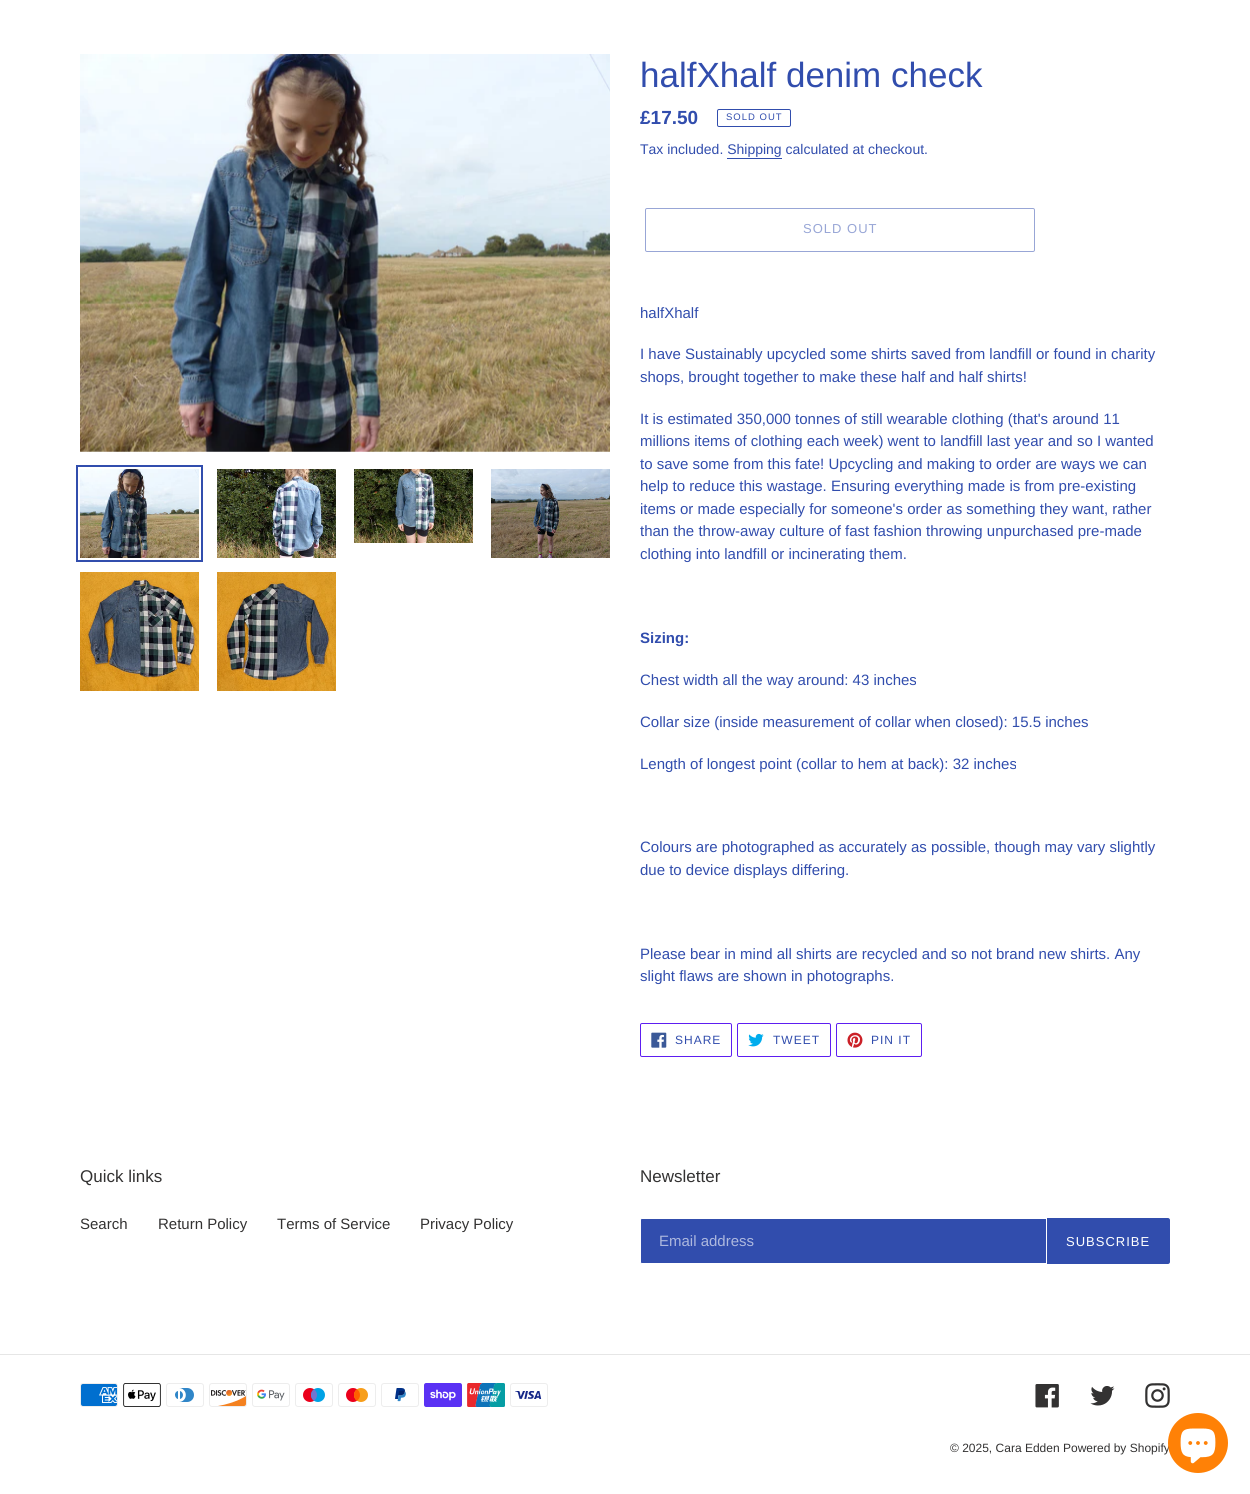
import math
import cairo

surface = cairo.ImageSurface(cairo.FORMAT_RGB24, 1250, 1494)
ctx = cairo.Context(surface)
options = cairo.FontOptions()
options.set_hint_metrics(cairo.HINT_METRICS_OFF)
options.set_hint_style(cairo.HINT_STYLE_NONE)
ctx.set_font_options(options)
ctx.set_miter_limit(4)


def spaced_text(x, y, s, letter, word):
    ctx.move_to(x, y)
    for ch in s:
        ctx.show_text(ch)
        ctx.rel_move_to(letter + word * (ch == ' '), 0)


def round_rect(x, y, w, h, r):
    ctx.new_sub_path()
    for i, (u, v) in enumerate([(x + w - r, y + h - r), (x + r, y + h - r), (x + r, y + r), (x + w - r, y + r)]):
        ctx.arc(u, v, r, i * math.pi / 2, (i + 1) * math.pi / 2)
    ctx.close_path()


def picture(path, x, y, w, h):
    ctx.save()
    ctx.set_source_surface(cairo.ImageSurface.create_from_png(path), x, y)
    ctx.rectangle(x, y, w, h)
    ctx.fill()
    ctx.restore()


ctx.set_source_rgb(1, 1, 1)
ctx.paint()
picture("img1.png", 80, 54, 530, 398)
ctx.rectangle(77, 466, 125, 95)
ctx.set_source_rgb(0.192, 0.302, 0.678)
ctx.stroke()
picture("img2.png", 80, 469, 119, 89)
picture("img3.png", 217, 469, 119, 89)
picture("img4.png", 354, 469, 119, 74)
picture("img5.png", 491, 469, 119, 89)
picture("img6.png", 80, 572, 119, 119)
picture("img7.png", 217, 572, 119, 119)
ctx.select_font_face("Liberation Sans")
ctx.set_font_size(35)
ctx.move_to(640, 87)
ctx.show_text("halfXhalf denim check")
ctx.select_font_face("Liberation Sans", cairo.FONT_SLANT_NORMAL, cairo.FONT_WEIGHT_BOLD)
ctx.set_font_size(19)
ctx.move_to(640, 124)
ctx.show_text("£17.50")
round_rect(717.5, 109.5, 73, 17, 1.5)
ctx.set_line_width(1)
ctx.stroke()
ctx.select_font_face("Liberation Sans")
ctx.set_font_size(9.5)
spaced_text(726, 120, "SOLD OUT", 1, 0)
ctx.set_font_size(14)
ctx.move_to(640, 154)
ctx.show_text("Tax included. Shipping calculated at checkout.")
ctx.rectangle(727, 158, 55, 1)
ctx.fill()
round_rect(645.5, 208.5, 389, 43, 1.5)
ctx.set_source_rgb(0.596, 0.651, 0.839)
ctx.stroke()
ctx.set_font_size(13)
spaced_text(803, 233, "SOLD OUT", 1, 0)
ctx.set_font_size(15)
ctx.set_source_rgb(0.192, 0.302, 0.678)
ctx.move_to(640, 318)
ctx.show_text("halfXhalf")
ctx.move_to(640, 359)
ctx.show_text("I have Sustainably upcycled some shirts saved from landfill or found in charity")
ctx.move_to(640, 382)
ctx.show_text("shops, brought together to make these half and half shirts!")
ctx.move_to(640, 424)
ctx.show_text("It is estimated 350,000 tonnes of still wearable clothing (that's around 11")
ctx.move_to(640, 446)
ctx.show_text("millions items of clothing each week) went to landfill last year and so I wanted")
ctx.move_to(640, 469)
ctx.show_text("to save some from this fate! Upcycling and making to order are ways we can")
ctx.move_to(640, 491)
ctx.show_text("help to reduce this wastage. Ensuring everything made is from pre-existing")
ctx.move_to(640, 514)
ctx.show_text("items or made especially for someone's order as something they want, rather")
ctx.move_to(640, 536)
ctx.show_text("than the throw-away culture of fast fashion throwing unpurchased pre-made")
ctx.move_to(640, 559)
ctx.show_text("clothing into landfill or incinerating them.")
ctx.select_font_face("Liberation Sans", cairo.FONT_SLANT_NORMAL, cairo.FONT_WEIGHT_BOLD)
ctx.move_to(640, 643)
ctx.show_text("Sizing:")
ctx.select_font_face("Liberation Sans")
ctx.move_to(640, 685)
ctx.show_text("Chest width all the way around: 43 inches")
ctx.move_to(640, 727)
ctx.show_text("Collar size (inside measurement of collar when closed): 15.5 inches")
ctx.move_to(640, 769)
ctx.show_text("Length of longest point (collar to hem at back): 32 inches")
ctx.move_to(640, 852)
ctx.show_text("Colours are photographed as accurately as possible, though may vary slightly")
ctx.move_to(640, 875)
ctx.show_text("due to device displays differing.")
ctx.move_to(640, 959)
ctx.show_text("Please bear in mind all shirts are recycled and so not brand new shirts. Any")
ctx.move_to(640, 981)
ctx.show_text("slight flaws are shown in photographs.")
round_rect(640.5, 1023.5, 91, 33, 1.5)
ctx.set_source_rgb(0.365, 0.118, 0.945)
ctx.stroke()
picture("img8.png", 651, 1032, 16, 16)
ctx.set_font_size(12)
ctx.set_source_rgb(0.192, 0.302, 0.678)
spaced_text(675, 1044, "SHARE", 1, 0)
round_rect(737.5, 1023.5, 93, 33, 1.5)
ctx.set_source_rgb(0.365, 0.118, 0.945)
ctx.stroke()
picture("img9.png", 748, 1033, 16, 14)
ctx.set_source_rgb(0.192, 0.302, 0.678)
spaced_text(773, 1044, "TWEET", 1, 0)
round_rect(836.5, 1023.5, 85, 33, 1.5)
ctx.set_source_rgb(0.365, 0.118, 0.945)
ctx.stroke()
picture("img10.png", 847, 1032, 16, 16)
ctx.set_source_rgb(0.192, 0.302, 0.678)
spaced_text(871, 1044, "PIN IT", 1, 0)
ctx.set_font_size(17)
ctx.set_source_rgb(0.2, 0.196, 0.196)
ctx.move_to(80, 1182)
ctx.show_text("Quick links")
ctx.set_font_size(15)
ctx.move_to(80, 1229)
ctx.show_text("Search")
ctx.move_to(158, 1229)
ctx.show_text("Return Policy")
ctx.move_to(277, 1229)
ctx.show_text("Terms of Service")
ctx.move_to(420, 1229)
ctx.show_text("Privacy Policy")
ctx.set_font_size(17)
ctx.move_to(640, 1182)
ctx.show_text("Newsletter")
ctx.set_source_rgb(0.192, 0.302, 0.678)
ctx.new_path()
ctx.move_to(642, 1218.5)
ctx.line_to(1046.5, 1218.5)
ctx.line_to(1046.5, 1263.5)
ctx.line_to(642, 1263.5)
ctx.curve_to(641, 1263.5, 640.5, 1263, 640.5, 1262)
ctx.line_to(640.5, 1220)
ctx.curve_to(640.5, 1219, 641, 1218.5, 642, 1218.5)
ctx.close_path()
ctx.fill_preserve()
ctx.set_source_rgb(1, 1, 1)
ctx.stroke()
ctx.set_font_size(15)
ctx.set_source_rgb(0.678, 0.722, 0.871)
ctx.move_to(659, 1246)
ctx.show_text("Email address")
ctx.set_source_rgb(0.192, 0.302, 0.678)
ctx.new_path()
ctx.move_to(1047, 1218)
ctx.line_to(1168, 1218)
ctx.curve_to(1169, 1218, 1170, 1219, 1170, 1220)
ctx.line_to(1170, 1262)
ctx.curve_to(1170, 1263, 1169, 1264, 1168, 1264)
ctx.line_to(1047, 1264)
ctx.close_path()
ctx.fill()
ctx.set_font_size(13)
ctx.set_source_rgb(1, 1, 1)
spaced_text(1066, 1246, "SUBSCRIBE", 1, 0)
ctx.set_source_rgb(0.902, 0.902, 0.902)
ctx.rectangle(0, 1354, 1250, 1)
ctx.fill()
picture("img11.png", 80, 1383, 38, 24)
picture("img12.png", 123, 1383, 38, 24)
picture("img13.png", 166, 1383, 38, 24)
picture("img14.png", 209, 1383, 38, 24)
picture("img15.png", 252, 1383, 38, 24)
picture("img16.png", 295, 1383, 38, 24)
picture("img17.png", 338, 1383, 38, 24)
picture("img18.png", 381, 1383, 38, 24)
picture("img19.png", 424, 1383, 38, 24)
picture("img20.png", 467, 1383, 38, 24)
picture("img21.png", 510, 1383, 38, 24)
picture("img22.png", 1035, 1384, 24, 24)
picture("img23.png", 1090, 1386, 25, 20)
picture("img24.png", 1145, 1383, 25, 25)
ctx.set_font_size(12)
ctx.set_source_rgb(0.2, 0.196, 0.196)
ctx.move_to(950, 1452)
ctx.show_text("© 2025, Cara Edden")
ctx.move_to(1063, 1452)
ctx.show_text("Powered by Shopify")
ctx.set_source_rgb(1, 0.506, 0.024)
ctx.new_path()
ctx.arc(1198, 1443, 30, 0, 2 * math.pi)
ctx.fill()
picture("img25.png", 1180, 1428, 36, 36)
surface.write_to_png("page.png")
